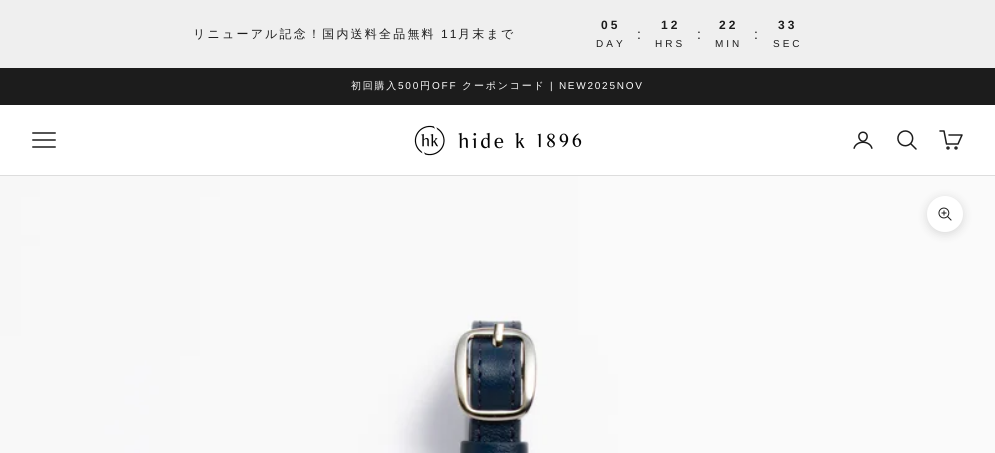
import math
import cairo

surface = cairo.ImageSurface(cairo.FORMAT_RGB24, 995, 453)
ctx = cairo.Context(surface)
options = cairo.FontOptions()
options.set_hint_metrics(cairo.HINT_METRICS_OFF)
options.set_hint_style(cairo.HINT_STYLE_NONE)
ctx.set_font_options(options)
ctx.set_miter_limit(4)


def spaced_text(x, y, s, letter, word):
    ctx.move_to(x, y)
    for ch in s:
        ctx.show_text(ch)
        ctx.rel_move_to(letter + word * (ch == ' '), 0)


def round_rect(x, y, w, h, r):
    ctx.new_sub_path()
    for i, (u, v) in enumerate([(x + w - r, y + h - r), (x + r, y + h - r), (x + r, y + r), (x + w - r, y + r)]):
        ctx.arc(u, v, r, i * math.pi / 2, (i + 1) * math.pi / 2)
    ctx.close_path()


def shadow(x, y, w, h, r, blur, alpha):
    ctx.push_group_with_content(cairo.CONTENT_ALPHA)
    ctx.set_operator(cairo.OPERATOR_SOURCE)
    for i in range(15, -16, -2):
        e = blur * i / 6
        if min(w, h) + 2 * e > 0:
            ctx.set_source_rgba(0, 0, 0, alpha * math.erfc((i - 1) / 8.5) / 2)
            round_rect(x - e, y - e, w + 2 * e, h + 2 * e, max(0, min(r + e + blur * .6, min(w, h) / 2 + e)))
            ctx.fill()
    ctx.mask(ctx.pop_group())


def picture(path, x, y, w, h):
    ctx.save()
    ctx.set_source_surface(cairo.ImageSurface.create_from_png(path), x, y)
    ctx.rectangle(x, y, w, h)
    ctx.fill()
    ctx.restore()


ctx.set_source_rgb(0.937, 0.937, 0.937)
ctx.paint()
ctx.select_font_face("WenQuanYi Zen Hei Medium")
ctx.set_font_size(12)
ctx.set_source_rgb(0.11, 0.11, 0.11)
spaced_text(193, 38, "リニューアル記念！国内送料全品無料", 2.2, 0)
ctx.select_font_face("Liberation Sans")
spaced_text(441, 38, "11", 2.2, 0)
ctx.select_font_face("WenQuanYi Zen Hei Medium")
spaced_text(458, 38, "月末まで", 2.2, 0)
ctx.select_font_face("Liberation Sans", cairo.FONT_SLANT_NORMAL, cairo.FONT_WEIGHT_BOLD)
spaced_text(601, 29, "05", 3, 0)
ctx.select_font_face("Liberation Sans")
ctx.set_font_size(10)
spaced_text(596, 47, "DAY", 3, 0)
ctx.set_font_size(14)
spaced_text(637, 39, ":", 3, 0)
ctx.select_font_face("Liberation Sans", cairo.FONT_SLANT_NORMAL, cairo.FONT_WEIGHT_BOLD)
ctx.set_font_size(12)
spaced_text(661, 29, "12", 3, 0)
ctx.select_font_face("Liberation Sans")
ctx.set_font_size(10)
spaced_text(655, 47, "HRS", 3, 0)
ctx.set_font_size(14)
spaced_text(697, 39, ":", 3, 0)
ctx.select_font_face("Liberation Sans", cairo.FONT_SLANT_NORMAL, cairo.FONT_WEIGHT_BOLD)
ctx.set_font_size(12)
spaced_text(719, 29, "22", 3, 0)
ctx.select_font_face("Liberation Sans")
ctx.set_font_size(10)
spaced_text(715, 47, "MIN", 3, 0)
ctx.set_font_size(14)
spaced_text(754, 39, ":", 3, 0)
ctx.select_font_face("Liberation Sans", cairo.FONT_SLANT_NORMAL, cairo.FONT_WEIGHT_BOLD)
ctx.set_font_size(12)
spaced_text(778, 29, "33", 3, 0)
ctx.select_font_face("Liberation Sans")
ctx.set_font_size(10)
spaced_text(773, 47, "SEC", 3, 0)
ctx.rectangle(0, 68, 995, 37)
ctx.fill()
ctx.select_font_face("WenQuanYi Zen Hei Medium")
ctx.set_source_rgb(1, 1, 1)
spaced_text(351, 89, "初回購入", 1.75, 0)
ctx.select_font_face("Liberation Sans")
spaced_text(398, 89, "500", 1.75, 0)
ctx.select_font_face("WenQuanYi Zen Hei Medium")
spaced_text(420, 89, "円", 1.75, 0)
ctx.select_font_face("Liberation Sans")
spaced_text(432, 89, "OFF", 1.75, 0)
ctx.select_font_face("WenQuanYi Zen Hei Medium")
spaced_text(462, 89, "クーポンコード", 1.75, 0)
ctx.select_font_face("Liberation Sans")
spaced_text(550, 89, "| NEW2025NOV", 1.75, 0)
ctx.rectangle(0, 105, 995, 70)
ctx.fill()
ctx.set_source_rgb(0.867, 0.867, 0.867)
ctx.rectangle(0, 175, 995, 1)
ctx.fill()
ctx.new_path()
ctx.move_to(33, 147)
ctx.line_to(55, 147)
ctx.move_to(33, 140)
ctx.line_to(55, 140)
ctx.move_to(33, 133)
ctx.line_to(55, 133)
ctx.set_source_rgb(0.11, 0.11, 0.11)
ctx.set_line_width(1.5)
ctx.set_line_cap(cairo.LINE_CAP_SQUARE)
ctx.stroke()
picture("img1.png", 414, 125, 168, 31)
picture("img2.png", 853, 131, 20, 18)
picture("img3.png", 897, 130, 20, 20)
ctx.new_path()
ctx.move_to(949, 135)
ctx.line_to(962, 135)
ctx.line_to(958, 144)
ctx.line_to(946.5, 144)
ctx.line_to(944, 131)
ctx.line_to(940, 131)
ctx.set_line_cap(cairo.LINE_CAP_ROUND)
ctx.set_line_join(cairo.LINE_JOIN_ROUND)
ctx.stroke()
ctx.arc(948, 148, 1, 0, 2 * math.pi)
ctx.set_line_cap(cairo.LINE_CAP_BUTT)
ctx.set_line_join(cairo.LINE_JOIN_MITER)
ctx.stroke()
ctx.arc(956, 148, 1, 0, 2 * math.pi)
ctx.stroke()
picture("img4.png", 0, 176, 995, 277)
ctx.set_source_rgb(0.11, 0.11, 0.11)
shadow(927, 198, 36, 36, 18, 5, 0.15)
ctx.set_source_rgb(1, 1, 1)
ctx.arc(945, 214, 18, 0, 2 * math.pi)
ctx.fill()
picture("img5.png", 938, 207, 14, 14)
surface.write_to_png("page.png")
